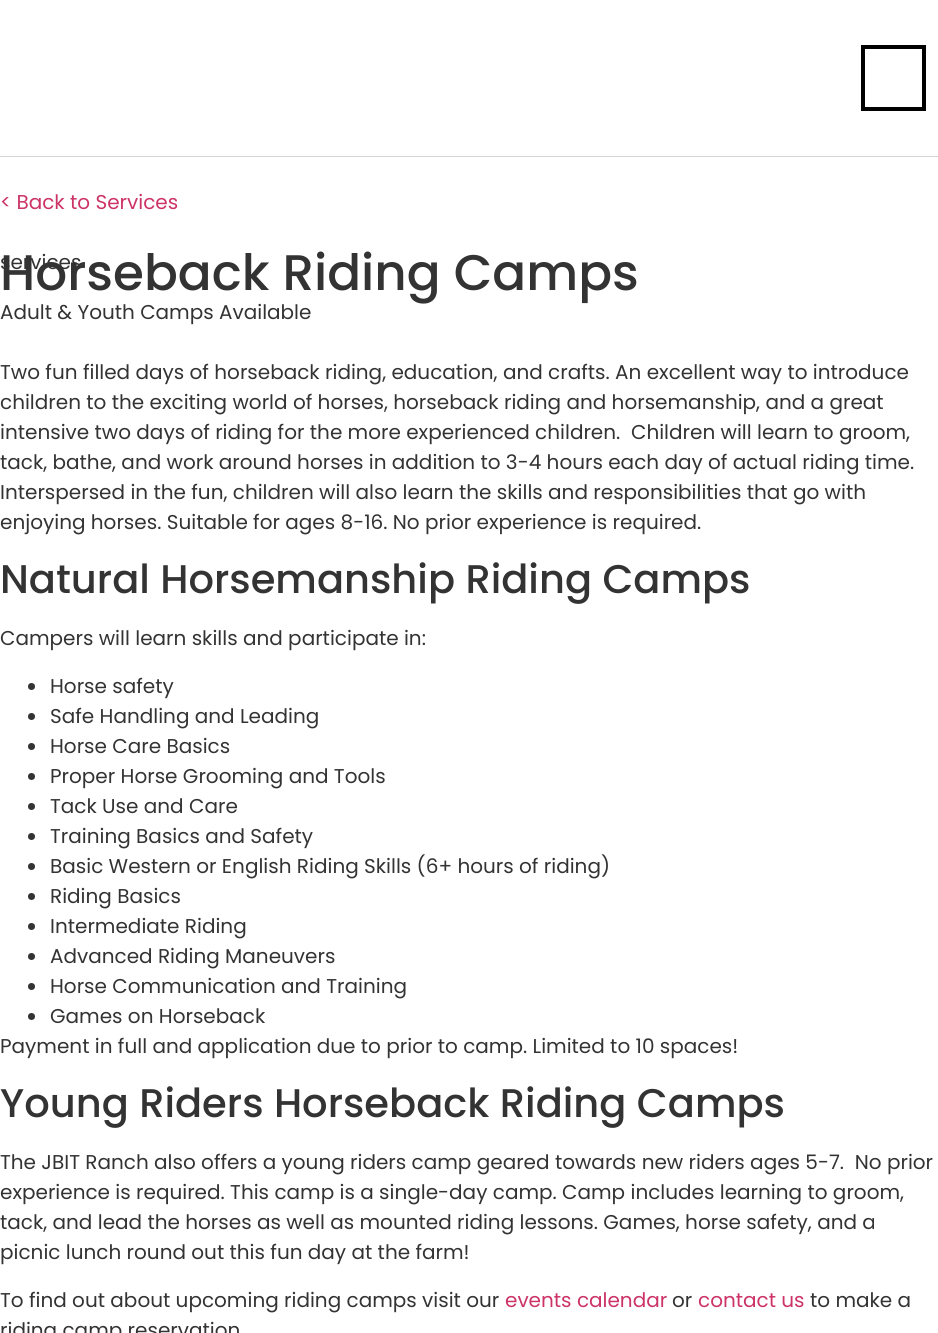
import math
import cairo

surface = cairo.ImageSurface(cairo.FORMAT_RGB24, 938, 1333)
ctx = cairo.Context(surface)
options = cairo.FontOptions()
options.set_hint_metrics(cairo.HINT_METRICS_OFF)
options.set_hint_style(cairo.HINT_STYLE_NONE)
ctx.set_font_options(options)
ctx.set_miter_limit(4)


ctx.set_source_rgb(1, 1, 1)
ctx.paint()
ctx.set_source_rgb(0.831, 0.831, 0.831)
ctx.rectangle(0, 156, 938, 1)
ctx.fill()
ctx.rectangle(863, 47, 61, 62)
ctx.set_source_rgb(0, 0, 0)
ctx.set_line_width(4)
ctx.stroke()
ctx.select_font_face("Poppins")
ctx.set_font_size(20)
ctx.set_source_rgb(0.8, 0.2, 0.4)
ctx.move_to(0, 209)
ctx.show_text("< Back to Services")
ctx.select_font_face("Poppins Medium")
ctx.set_font_size(50)
ctx.set_source_rgb(0.2, 0.2, 0.2)
ctx.move_to(0, 290)
ctx.show_text("Horseback Riding Camps")
ctx.select_font_face("Poppins")
ctx.set_font_size(20)
ctx.move_to(0, 269)
ctx.show_text("services")
ctx.move_to(0, 319)
ctx.show_text("Adult & Youth Camps Available")
ctx.move_to(0, 379)
ctx.show_text("Two fun filled days of horseback riding, education, and crafts. An excellent way to introduce")
ctx.move_to(0, 409)
ctx.show_text("children to the exciting world of horses, horseback riding and horsemanship, and a great")
ctx.move_to(0, 439)
ctx.show_text("intensive two days of riding for the more experienced children.  Children will learn to groom,")
ctx.move_to(0, 469)
ctx.show_text("tack, bathe, and work around horses in addition to 3-4 hours each day of actual riding time.")
ctx.move_to(0, 499)
ctx.show_text("Interspersed in the fun, children will also learn the skills and responsibilities that go with")
ctx.move_to(0, 529)
ctx.show_text("enjoying horses. Suitable for ages 8-16. No prior experience is required.")
ctx.select_font_face("Poppins Medium")
ctx.set_font_size(40)
ctx.move_to(0, 593)
ctx.show_text("Natural Horsemanship Riding Camps")
ctx.select_font_face("Poppins")
ctx.set_font_size(20)
ctx.move_to(0, 645)
ctx.show_text("Campers will learn skills and participate in:")
ctx.new_path()
ctx.arc(31.5, 686.5, 3.5, 0, 2 * math.pi)
ctx.fill()
ctx.move_to(50, 693)
ctx.show_text("Horse safety")
ctx.new_path()
ctx.arc(31.5, 716.5, 3.5, 0, 2 * math.pi)
ctx.fill()
ctx.move_to(50, 723)
ctx.show_text("Safe Handling and Leading")
ctx.new_path()
ctx.arc(31.5, 746.5, 3.5, 0, 2 * math.pi)
ctx.fill()
ctx.move_to(50, 753)
ctx.show_text("Horse Care Basics")
ctx.new_path()
ctx.arc(31.5, 776.5, 3.5, 0, 2 * math.pi)
ctx.fill()
ctx.move_to(50, 783)
ctx.show_text("Proper Horse Grooming and Tools")
ctx.new_path()
ctx.arc(31.5, 806.5, 3.5, 0, 2 * math.pi)
ctx.fill()
ctx.move_to(50, 813)
ctx.show_text("Tack Use and Care")
ctx.new_path()
ctx.arc(31.5, 836.5, 3.5, 0, 2 * math.pi)
ctx.fill()
ctx.move_to(50, 843)
ctx.show_text("Training Basics and Safety")
ctx.new_path()
ctx.arc(31.5, 866.5, 3.5, 0, 2 * math.pi)
ctx.fill()
ctx.move_to(50, 873)
ctx.show_text("Basic Western or English Riding Skills (6+ hours of riding)")
ctx.new_path()
ctx.arc(31.5, 896.5, 3.5, 0, 2 * math.pi)
ctx.fill()
ctx.move_to(50, 903)
ctx.show_text("Riding Basics")
ctx.new_path()
ctx.arc(31.5, 926.5, 3.5, 0, 2 * math.pi)
ctx.fill()
ctx.move_to(50, 933)
ctx.show_text("Intermediate Riding")
ctx.new_path()
ctx.arc(31.5, 956.5, 3.5, 0, 2 * math.pi)
ctx.fill()
ctx.move_to(50, 963)
ctx.show_text("Advanced Riding Maneuvers")
ctx.new_path()
ctx.arc(31.5, 986.5, 3.5, 0, 2 * math.pi)
ctx.fill()
ctx.move_to(50, 993)
ctx.show_text("Horse Communication and Training")
ctx.new_path()
ctx.arc(31.5, 1016.5, 3.5, 0, 2 * math.pi)
ctx.fill()
ctx.move_to(50, 1023)
ctx.show_text("Games on Horseback")
ctx.move_to(0, 1053)
ctx.show_text("Payment in full and application due to prior to camp. Limited to 10 spaces!")
ctx.select_font_face("Poppins Medium")
ctx.set_font_size(40)
ctx.move_to(0, 1117)
ctx.show_text("Young Riders Horseback Riding Camps")
ctx.select_font_face("Poppins")
ctx.set_font_size(20)
ctx.move_to(0, 1169)
ctx.show_text("The JBIT Ranch also offers a young riders camp geared towards new riders ages 5-7.  No prior")
ctx.move_to(0, 1199)
ctx.show_text("experience is required. This camp is a single-day camp. Camp includes learning to groom,")
ctx.move_to(0, 1229)
ctx.show_text("tack, and lead the horses as well as mounted riding lessons. Games, horse safety, and a")
ctx.move_to(0, 1259)
ctx.show_text("picnic lunch round out this fun day at the farm!")
ctx.move_to(0, 1307)
ctx.show_text("To find out about upcoming riding camps visit our")
ctx.set_source_rgb(0.8, 0.2, 0.4)
ctx.move_to(505, 1307)
ctx.show_text("events calendar")
ctx.set_source_rgb(0.2, 0.2, 0.2)
ctx.move_to(672, 1307)
ctx.show_text("or")
ctx.set_source_rgb(0.8, 0.2, 0.4)
ctx.move_to(698, 1307)
ctx.show_text("contact us")
ctx.set_source_rgb(0.2, 0.2, 0.2)
ctx.move_to(810, 1307)
ctx.show_text("to make a")
ctx.move_to(0, 1337)
ctx.show_text("riding camp reservation")
surface.write_to_png("page.png")
